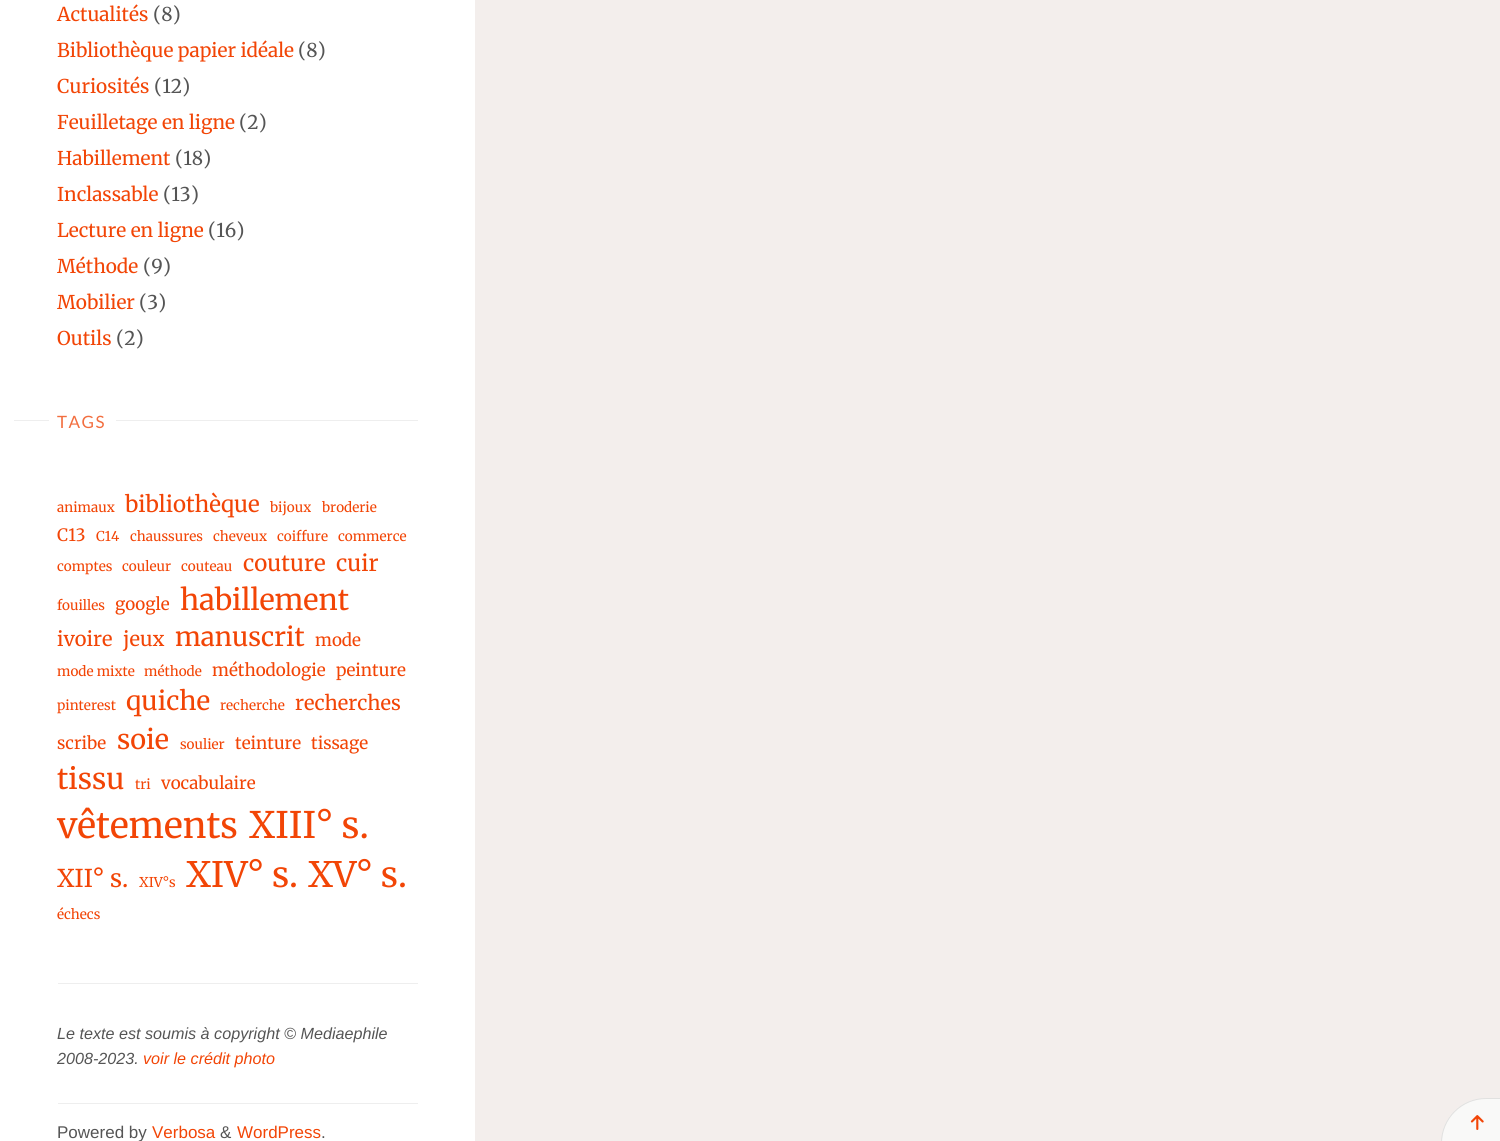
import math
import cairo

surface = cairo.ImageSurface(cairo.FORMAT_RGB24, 1500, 1141)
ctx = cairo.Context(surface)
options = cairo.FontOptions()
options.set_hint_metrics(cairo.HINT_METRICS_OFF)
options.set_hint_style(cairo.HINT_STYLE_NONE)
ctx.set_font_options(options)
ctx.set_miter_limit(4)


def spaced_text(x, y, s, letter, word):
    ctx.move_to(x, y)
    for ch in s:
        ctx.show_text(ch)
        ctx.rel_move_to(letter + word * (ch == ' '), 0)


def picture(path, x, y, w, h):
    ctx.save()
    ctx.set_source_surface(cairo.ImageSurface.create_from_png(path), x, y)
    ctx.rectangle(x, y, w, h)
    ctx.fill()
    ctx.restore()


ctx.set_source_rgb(0.953, 0.933, 0.922)
ctx.paint()
ctx.set_source_rgb(1, 1, 1)
ctx.rectangle(0, 0, 475, 1141)
ctx.fill()
ctx.select_font_face("Merriweather Light")
ctx.set_font_size(19)
ctx.set_source_rgb(0.949, 0.271, 0.027)
ctx.move_to(57, 21)
ctx.show_text("Actualités")
ctx.set_source_rgb(0.333, 0.333, 0.333)
ctx.move_to(153, 21)
ctx.show_text("(8)")
ctx.set_source_rgb(0.949, 0.271, 0.027)
ctx.move_to(57, 57)
ctx.show_text("Bibliothèque papier idéale")
ctx.set_source_rgb(0.333, 0.333, 0.333)
ctx.move_to(298, 57)
ctx.show_text("(8)")
ctx.set_source_rgb(0.949, 0.271, 0.027)
ctx.move_to(57, 93)
ctx.show_text("Curiosités")
ctx.set_source_rgb(0.333, 0.333, 0.333)
ctx.move_to(154, 93)
ctx.show_text("(12)")
ctx.set_source_rgb(0.949, 0.271, 0.027)
ctx.move_to(57, 129)
ctx.show_text("Feuilletage en ligne")
ctx.set_source_rgb(0.333, 0.333, 0.333)
ctx.move_to(239, 129)
ctx.show_text("(2)")
ctx.set_source_rgb(0.949, 0.271, 0.027)
ctx.move_to(57, 165)
ctx.show_text("Habillement")
ctx.set_source_rgb(0.333, 0.333, 0.333)
ctx.move_to(175, 165)
ctx.show_text("(18)")
ctx.set_source_rgb(0.949, 0.271, 0.027)
ctx.move_to(57, 201)
ctx.show_text("Inclassable")
ctx.set_source_rgb(0.333, 0.333, 0.333)
ctx.move_to(163, 201)
ctx.show_text("(13)")
ctx.set_source_rgb(0.949, 0.271, 0.027)
ctx.move_to(57, 237)
ctx.show_text("Lecture en ligne")
ctx.set_source_rgb(0.333, 0.333, 0.333)
ctx.move_to(208, 237)
ctx.show_text("(16)")
ctx.set_source_rgb(0.949, 0.271, 0.027)
ctx.move_to(57, 273)
ctx.show_text("Méthode")
ctx.set_source_rgb(0.333, 0.333, 0.333)
ctx.move_to(143, 273)
ctx.show_text("(9)")
ctx.set_source_rgb(0.949, 0.271, 0.027)
ctx.move_to(57, 309)
ctx.show_text("Mobilier")
ctx.set_source_rgb(0.333, 0.333, 0.333)
ctx.move_to(139, 309)
ctx.show_text("(3)")
ctx.set_source_rgb(0.949, 0.271, 0.027)
ctx.move_to(57, 345)
ctx.show_text("Outils")
ctx.set_source_rgb(0.333, 0.333, 0.333)
ctx.move_to(116, 345)
ctx.show_text("(2)")
ctx.set_source_rgb(0.933, 0.933, 0.933)
ctx.rectangle(14, 420, 404, 1)
ctx.fill()
ctx.set_source_rgb(1, 1, 1)
ctx.rectangle(49, 420, 67, 1)
ctx.fill()
ctx.select_font_face("Lato")
ctx.set_font_size(17)
ctx.set_source_rgb(0.949, 0.431, 0.247)
spaced_text(57, 428, "TAGS", 1.5, 0)
ctx.select_font_face("Merriweather Light")
ctx.set_font_size(13.5)
ctx.set_source_rgb(0.949, 0.271, 0.027)
ctx.move_to(57, 512)
ctx.show_text("animaux")
ctx.set_font_size(22.25)
ctx.move_to(125, 512)
ctx.show_text("bibliothèque")
ctx.set_font_size(13.5)
ctx.move_to(270, 512)
ctx.show_text("bijoux")
ctx.move_to(322, 512)
ctx.show_text("broderie")
ctx.set_font_size(17)
ctx.move_to(57, 541)
ctx.show_text("C13")
ctx.set_font_size(13.5)
ctx.move_to(96, 541)
ctx.show_text("C14")
ctx.move_to(130, 541)
ctx.show_text("chaussures")
ctx.move_to(213, 541)
ctx.show_text("cheveux")
ctx.move_to(277, 541)
ctx.show_text("coiffure")
ctx.move_to(338, 541)
ctx.show_text("commerce")
ctx.move_to(57, 571)
ctx.show_text("comptes")
ctx.move_to(122, 571)
ctx.show_text("couleur")
ctx.move_to(181, 571)
ctx.show_text("couteau")
ctx.set_font_size(22.25)
ctx.move_to(243, 571)
ctx.show_text("couture")
ctx.move_to(336, 571)
ctx.show_text("cuir")
ctx.set_font_size(13.5)
ctx.move_to(57, 610)
ctx.show_text("fouilles")
ctx.set_font_size(17)
ctx.move_to(115, 610)
ctx.show_text("google")
ctx.set_font_size(29)
ctx.move_to(180, 610)
ctx.show_text("habillement")
ctx.set_font_size(20)
ctx.move_to(57, 646)
ctx.show_text("ivoire")
ctx.move_to(123, 646)
ctx.show_text("jeux")
ctx.set_font_size(26)
ctx.move_to(175, 646)
ctx.show_text("manuscrit")
ctx.set_font_size(17)
ctx.move_to(315, 646)
ctx.show_text("mode")
ctx.set_font_size(13.5)
ctx.move_to(57, 676)
ctx.show_text("mode mixte")
ctx.move_to(144, 676)
ctx.show_text("méthode")
ctx.set_font_size(17)
ctx.move_to(212, 676)
ctx.show_text("méthodologie")
ctx.move_to(336, 676)
ctx.show_text("peinture")
ctx.set_font_size(13.5)
ctx.move_to(57, 710)
ctx.show_text("pinterest")
ctx.set_font_size(26)
ctx.move_to(126, 710)
ctx.show_text("quiche")
ctx.set_font_size(13.5)
ctx.move_to(220, 710)
ctx.show_text("recherche")
ctx.set_font_size(20)
ctx.move_to(295, 710)
ctx.show_text("recherches")
ctx.set_font_size(17)
ctx.move_to(57, 749)
ctx.show_text("scribe")
ctx.set_font_size(27)
ctx.move_to(117, 749)
ctx.show_text("soie")
ctx.set_font_size(13.5)
ctx.move_to(180, 749)
ctx.show_text("soulier")
ctx.set_font_size(17)
ctx.move_to(235, 749)
ctx.show_text("teinture")
ctx.move_to(311, 749)
ctx.show_text("tissage")
ctx.set_font_size(29)
ctx.move_to(57, 789)
ctx.show_text("tissu")
ctx.set_font_size(13.5)
ctx.move_to(135, 789)
ctx.show_text("tri")
ctx.set_font_size(17)
ctx.move_to(161, 789)
ctx.show_text("vocabulaire")
ctx.set_font_size(35.75)
ctx.move_to(57, 838)
ctx.show_text("vêtements")
ctx.set_font_size(36.5)
ctx.move_to(249, 838)
ctx.show_text("XIII° s.")
ctx.set_font_size(24.5)
ctx.move_to(57, 887)
ctx.show_text("XII° s.")
ctx.set_font_size(13.5)
ctx.move_to(139, 887)
ctx.show_text("XIV°s")
ctx.set_font_size(35)
ctx.move_to(186, 887)
ctx.show_text("XIV° s.")
ctx.move_to(308, 887)
ctx.show_text("XV° s.")
ctx.set_font_size(13.5)
ctx.move_to(57, 919)
ctx.show_text("échecs")
ctx.set_source_rgb(0.933, 0.933, 0.933)
ctx.rectangle(58, 983, 360, 1)
ctx.fill()
ctx.rectangle(58, 1103, 360, 1)
ctx.fill()
ctx.select_font_face("Liberation Sans", cairo.FONT_SLANT_ITALIC)
ctx.set_font_size(16.15)
ctx.set_source_rgb(0.333, 0.333, 0.333)
ctx.move_to(57, 1039)
ctx.show_text("Le texte est soumis à copyright © Mediaephile")
ctx.move_to(57, 1064)
ctx.show_text("2008-2023.")
ctx.set_source_rgb(0.949, 0.271, 0.027)
ctx.move_to(143, 1064)
ctx.show_text("voir le crédit photo")
ctx.select_font_face("Liberation Sans")
ctx.set_font_size(17)
ctx.set_source_rgb(0.333, 0.333, 0.333)
ctx.move_to(57, 1138)
ctx.show_text("Powered by")
ctx.set_source_rgb(0.949, 0.271, 0.027)
ctx.move_to(152, 1138)
ctx.show_text("Verbosa")
ctx.set_source_rgb(0.333, 0.333, 0.333)
ctx.move_to(220, 1138)
ctx.show_text("&")
ctx.set_source_rgb(0.949, 0.271, 0.027)
ctx.move_to(237, 1138)
ctx.show_text("WordPress")
ctx.set_source_rgb(0.333, 0.333, 0.333)
ctx.move_to(321, 1138)
ctx.show_text(".")
ctx.set_source_rgb(0.976, 0.973, 0.969)
ctx.new_path()
ctx.move_to(1486, 1098)
ctx.line_to(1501, 1098)
ctx.line_to(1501, 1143)
ctx.line_to(1441, 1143)
ctx.curve_to(1441, 1118, 1461, 1098, 1486, 1098)
ctx.close_path()
ctx.fill()
ctx.new_path()
ctx.move_to(1486, 1098.5)
ctx.line_to(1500.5, 1098.5)
ctx.line_to(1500.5, 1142.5)
ctx.line_to(1441.5, 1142.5)
ctx.line_to(1441.5, 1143)
ctx.curve_to(1441.5, 1118.5, 1461.5, 1098.5, 1486, 1098.5)
ctx.close_path()
ctx.set_source_rgba(0, 0, 0, 0.1)
ctx.set_line_width(1)
ctx.stroke()
picture("img1.png", 1470, 1115, 14, 15)
surface.write_to_png("page.png")
